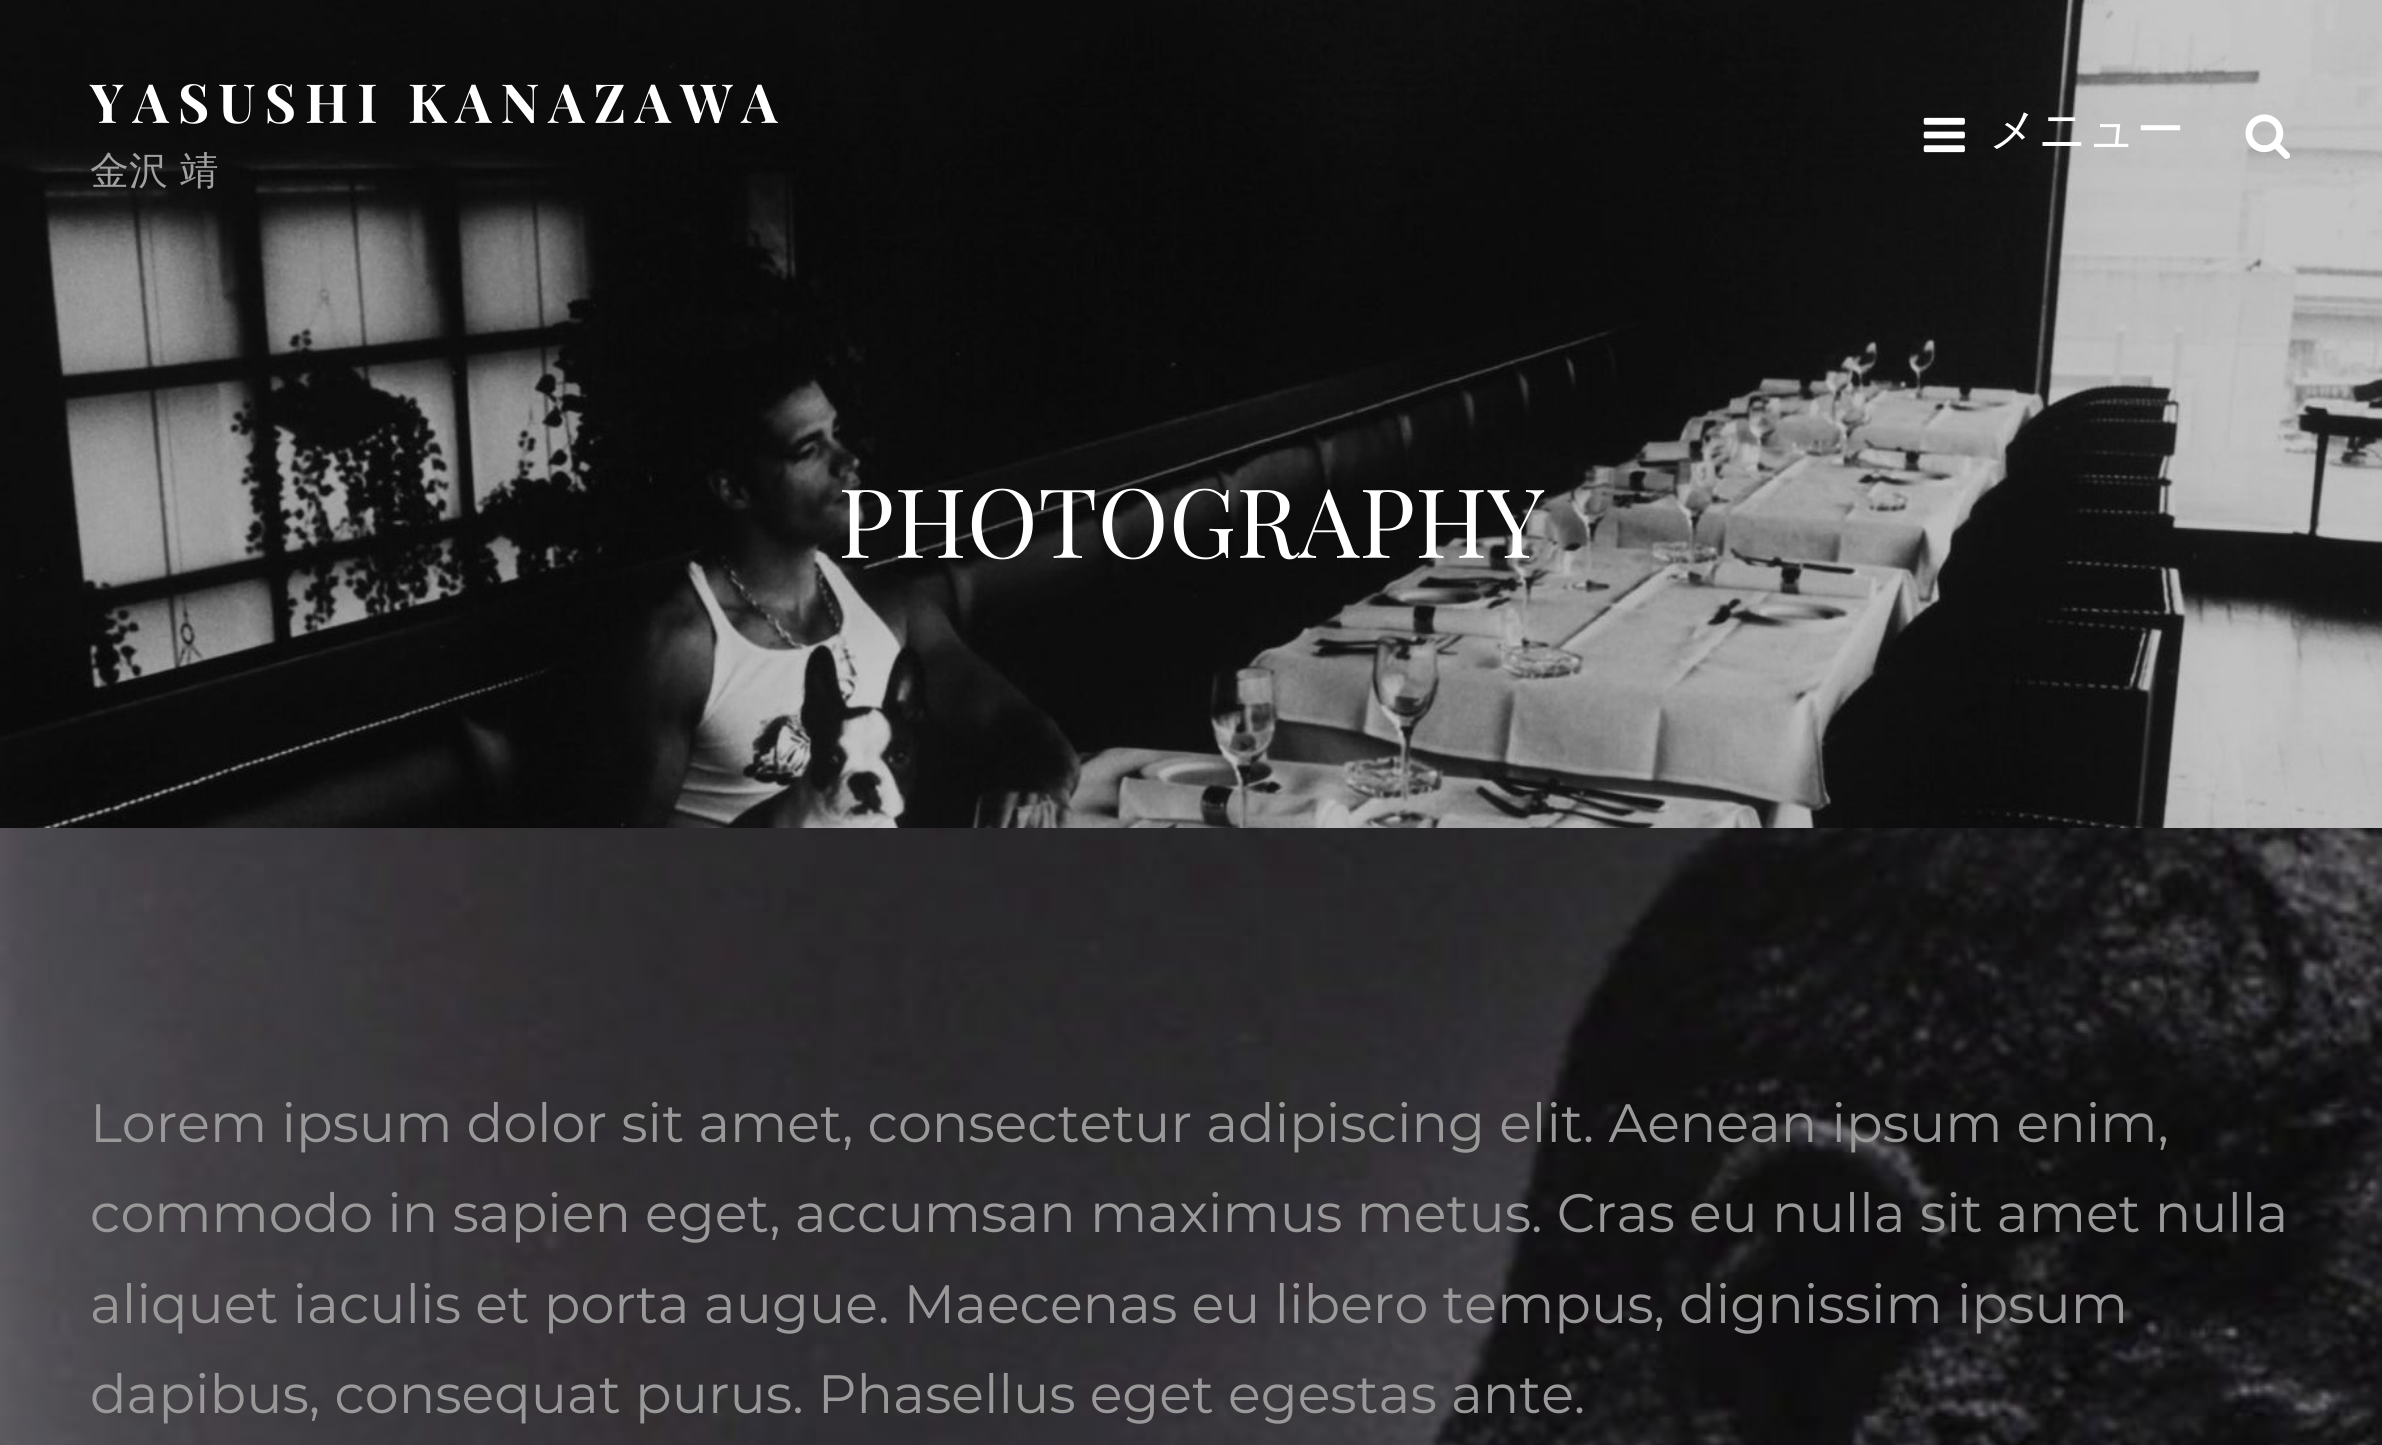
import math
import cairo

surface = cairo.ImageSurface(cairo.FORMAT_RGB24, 2382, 1445)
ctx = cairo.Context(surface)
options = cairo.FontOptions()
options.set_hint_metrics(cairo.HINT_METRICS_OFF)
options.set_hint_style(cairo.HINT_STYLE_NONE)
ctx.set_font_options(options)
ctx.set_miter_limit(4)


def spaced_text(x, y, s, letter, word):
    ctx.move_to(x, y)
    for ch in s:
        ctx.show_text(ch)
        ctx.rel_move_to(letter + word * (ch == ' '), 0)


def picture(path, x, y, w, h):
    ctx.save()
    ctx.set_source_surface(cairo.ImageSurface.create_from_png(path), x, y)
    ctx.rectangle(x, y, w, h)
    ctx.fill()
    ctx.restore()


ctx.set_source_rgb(1, 1, 1)
ctx.paint()
picture("img1.png", 0, 828, 2382, 617)
picture("img4.png", 0, 0, 2382, 828)
ctx.select_font_face("Playfair Display", cairo.FONT_SLANT_NORMAL, cairo.FONT_WEIGHT_BOLD)
ctx.set_font_size(54)
ctx.set_source_rgb(1, 1, 1)
spaced_text(90, 123, "YASUSHI KANAZAWA", 9, 0)
ctx.select_font_face("WenQuanYi Zen Hei Medium")
ctx.set_font_size(39)
ctx.set_source_rgb(0.627, 0.627, 0.627)
ctx.move_to(90, 184)
ctx.show_text("金沢 靖")
picture("img2.png", 1923, 117, 42, 36)
ctx.set_font_size(48)
ctx.set_source_rgb(1, 1, 1)
ctx.move_to(1989, 146)
ctx.show_text("メニュー")
picture("img3.png", 2245, 114, 45, 45)
ctx.select_font_face("Playfair Display")
ctx.set_font_size(96)
ctx.move_to(838, 558)
ctx.show_text("PHOTOGRAPHY")
ctx.select_font_face("Montserrat")
ctx.set_font_size(54)
ctx.set_source_rgb(0.6, 0.6, 0.6)
ctx.move_to(90, 1142)
ctx.show_text("Lorem ipsum dolor sit amet, consectetur adipiscing elit. Aenean ipsum enim,")
ctx.move_to(90, 1232)
ctx.show_text("commodo in sapien eget, accumsan maximus metus. Cras eu nulla sit amet nulla")
ctx.move_to(90, 1323)
ctx.show_text("aliquet iaculis et porta augue. Maecenas eu libero tempus, dignissim ipsum")
ctx.move_to(90, 1413)
ctx.show_text("dapibus, consequat purus. Phasellus eget egestas ante.")
surface.write_to_png("page.png")
